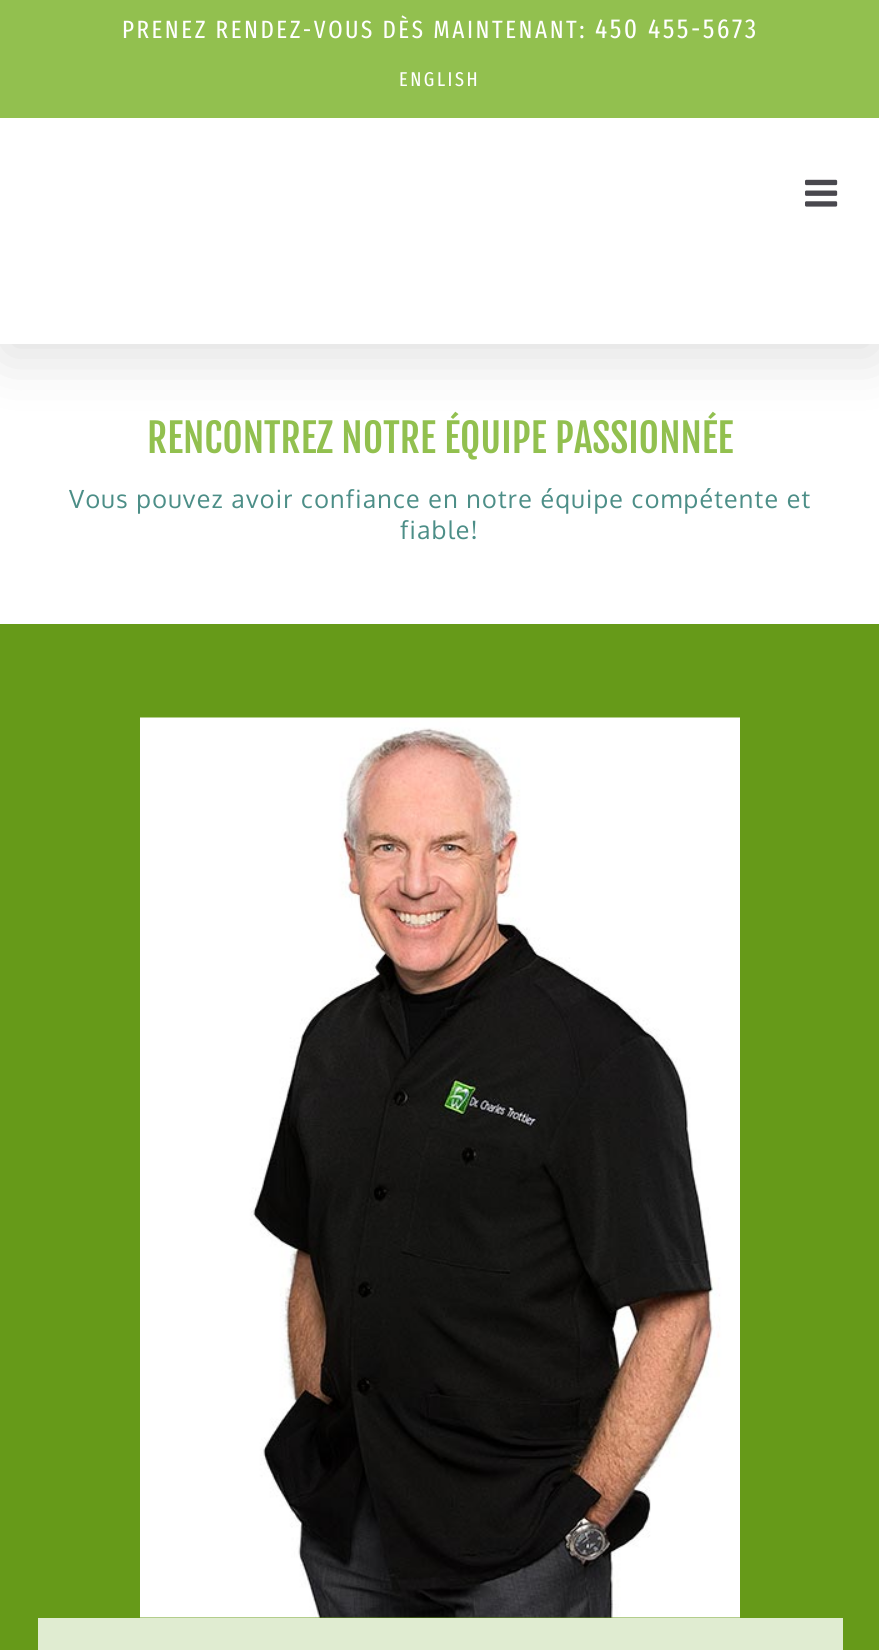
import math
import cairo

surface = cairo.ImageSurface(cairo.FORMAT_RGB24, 879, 1650)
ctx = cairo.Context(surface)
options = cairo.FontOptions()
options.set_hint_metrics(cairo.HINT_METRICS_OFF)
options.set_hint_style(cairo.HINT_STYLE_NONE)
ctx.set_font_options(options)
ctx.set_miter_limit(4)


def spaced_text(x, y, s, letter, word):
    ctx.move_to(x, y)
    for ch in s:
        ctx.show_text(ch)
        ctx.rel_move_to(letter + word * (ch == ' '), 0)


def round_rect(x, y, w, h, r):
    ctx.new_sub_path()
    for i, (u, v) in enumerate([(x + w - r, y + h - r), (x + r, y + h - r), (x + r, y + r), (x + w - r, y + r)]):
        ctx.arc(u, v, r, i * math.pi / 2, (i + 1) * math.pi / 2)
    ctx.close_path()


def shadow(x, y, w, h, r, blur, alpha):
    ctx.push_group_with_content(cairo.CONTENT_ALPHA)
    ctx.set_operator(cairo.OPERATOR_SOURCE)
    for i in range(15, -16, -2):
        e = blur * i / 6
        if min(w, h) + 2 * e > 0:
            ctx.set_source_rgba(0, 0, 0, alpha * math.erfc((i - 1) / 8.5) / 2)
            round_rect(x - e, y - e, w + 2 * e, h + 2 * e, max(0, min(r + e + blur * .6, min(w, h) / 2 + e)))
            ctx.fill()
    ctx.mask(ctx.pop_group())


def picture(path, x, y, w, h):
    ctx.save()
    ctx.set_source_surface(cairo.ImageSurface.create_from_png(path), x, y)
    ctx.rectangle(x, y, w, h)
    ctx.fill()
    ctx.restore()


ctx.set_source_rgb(1, 1, 1)
ctx.paint()
ctx.set_source_rgb(0, 0, 0)
shadow(3, 15, 875, 339, 0, 31, 0.14)
ctx.set_source_rgb(0.573, 0.753, 0.31)
ctx.rectangle(0, 0, 879, 118)
ctx.fill()
ctx.select_font_face("Fira Sans Extra Condensed")
ctx.set_font_size(25)
ctx.set_source_rgb(1, 1, 1)
spaced_text(122, 38, "PRENEZ RENDEZ-VOUS DÈS MAINTENANT:", 2.5, 0)
ctx.set_font_size(27.5)
spaced_text(595, 38, "450 455-5673", 2.5, 0)
ctx.set_font_size(20)
spaced_text(399, 86, "ENGLISH", 2.5, 0)
ctx.rectangle(0, 118, 879, 226)
ctx.fill()
picture("img1.png", 805, 179, 33, 28)
ctx.select_font_face("Fjalla One")
ctx.set_font_size(39.25)
ctx.set_source_rgb(0.573, 0.753, 0.31)
ctx.move_to(147, 453)
ctx.show_text("RENCONTREZ NOTRE ÉQUIPE PASSIONNÉE")
ctx.select_font_face("Oxygen")
ctx.set_font_size(25)
ctx.set_source_rgb(0.298, 0.557, 0.529)
spaced_text(69, 508, "Vous pouvez avoir confiance en notre équipe compétente et", 1.25, 0)
spaced_text(400, 539, "fiable!", 1.25, 0)
ctx.set_source_rgb(0.4, 0.604, 0.098)
ctx.rectangle(0, 624, 879, 1026)
ctx.fill()
picture("img2.png", 140, 717, 600, 901)
ctx.set_source_rgb(0.878, 0.922, 0.82)
ctx.rectangle(38, 1618, 805, 32)
ctx.fill()
surface.write_to_png("page.png")
